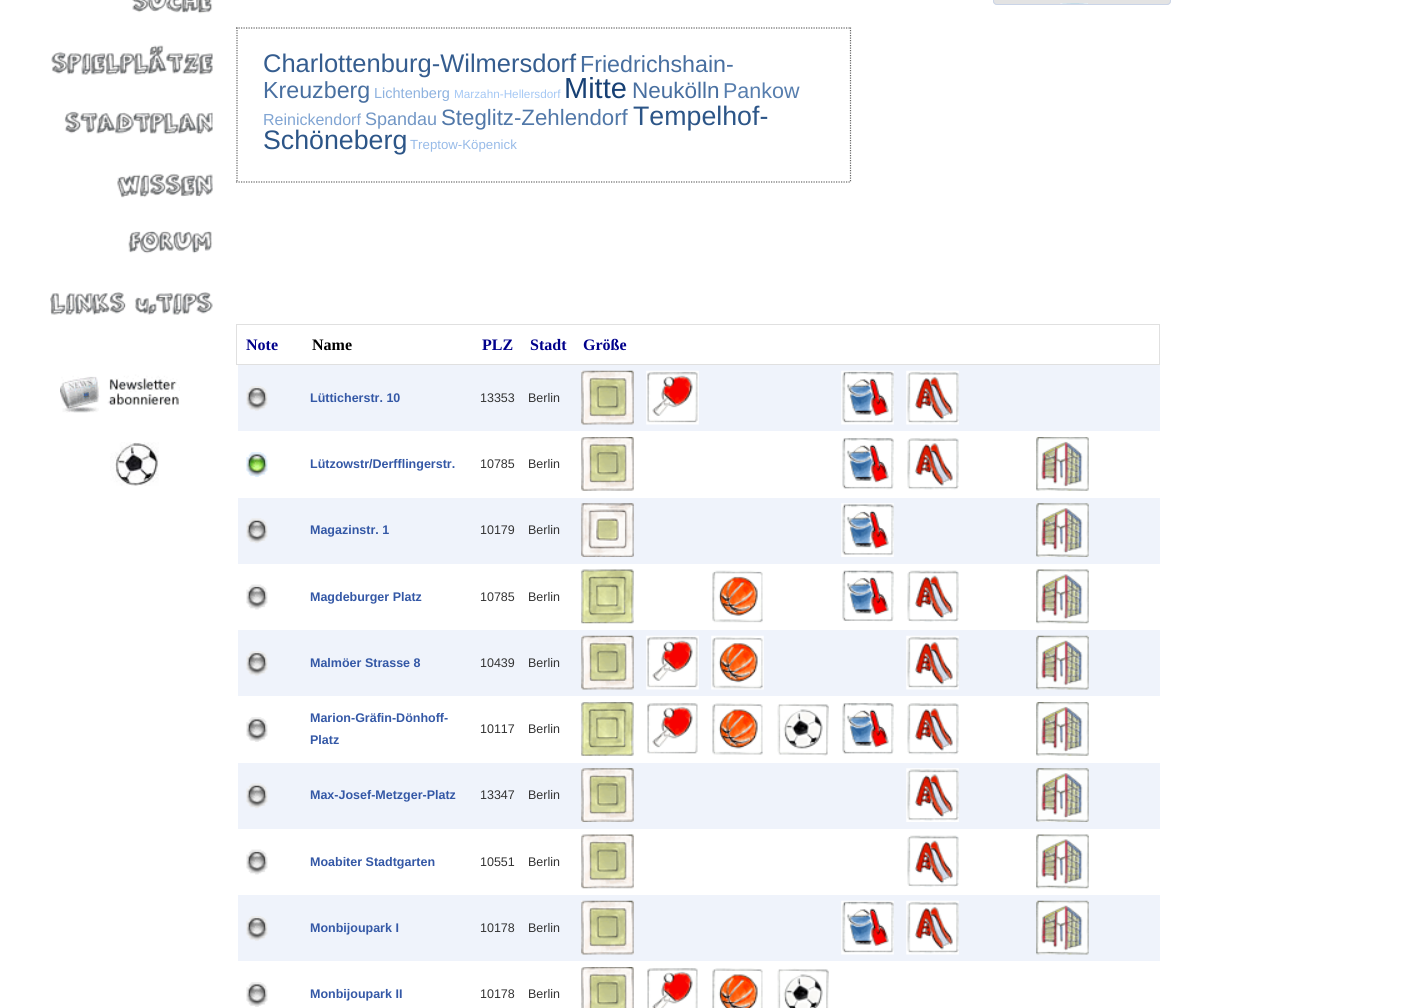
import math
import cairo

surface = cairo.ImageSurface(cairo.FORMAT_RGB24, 1418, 1008)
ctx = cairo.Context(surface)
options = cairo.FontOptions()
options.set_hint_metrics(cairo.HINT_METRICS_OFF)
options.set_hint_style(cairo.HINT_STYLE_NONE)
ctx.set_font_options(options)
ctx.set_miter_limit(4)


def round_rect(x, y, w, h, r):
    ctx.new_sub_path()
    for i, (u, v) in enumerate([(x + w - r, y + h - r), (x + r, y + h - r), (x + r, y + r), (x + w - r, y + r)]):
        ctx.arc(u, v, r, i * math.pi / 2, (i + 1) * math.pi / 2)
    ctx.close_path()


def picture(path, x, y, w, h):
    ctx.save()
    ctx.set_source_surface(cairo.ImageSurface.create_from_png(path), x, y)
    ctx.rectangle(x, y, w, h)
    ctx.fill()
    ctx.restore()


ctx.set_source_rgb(1, 1, 1)
ctx.paint()
picture("img1.png", 132, 0, 81, 14)
picture("img2.png", 51, 45, 162, 30)
picture("img3.png", 64, 111, 149, 24)
picture("img4.png", 117, 173, 96, 25)
picture("img5.png", 128, 231, 85, 23)
picture("img6.png", 50, 292, 163, 23)
picture("img7.png", 60, 374, 120, 39)
picture("img8.png", 110, 442, 49, 44)
ctx.new_path()
ctx.move_to(236, 28)
ctx.line_to(851, 28)
ctx.set_source_rgb(0.4, 0.4, 0.4)
ctx.set_line_width(1.2)
ctx.set_dash([1.25, 1.25])
ctx.stroke()
ctx.new_path()
ctx.move_to(850.5, 27.5)
ctx.line_to(850.5, 182.5)
ctx.stroke()
ctx.new_path()
ctx.move_to(236, 182)
ctx.line_to(851, 182)
ctx.stroke()
ctx.new_path()
ctx.move_to(237, 27.5)
ctx.line_to(237, 182.5)
ctx.stroke()
ctx.select_font_face("Liberation Sans")
ctx.set_font_size(25.5)
ctx.set_source_rgb(0.208, 0.365, 0.561)
ctx.move_to(263, 72)
ctx.show_text("Charlottenburg-Wilmersdorf")
ctx.set_font_size(23.25)
ctx.set_source_rgb(0.282, 0.435, 0.627)
ctx.move_to(580, 72)
ctx.show_text("Friedrichshain-")
ctx.move_to(263, 98)
ctx.show_text("Kreuzberg")
ctx.set_font_size(14.5)
ctx.set_source_rgb(0.557, 0.698, 0.875)
ctx.move_to(374, 98)
ctx.show_text("Lichtenberg")
ctx.set_font_size(11.75)
ctx.set_source_rgb(0.647, 0.784, 0.957)
ctx.move_to(454, 98)
ctx.show_text("Marzahn-Hellersdorf")
ctx.set_font_size(29)
ctx.set_source_rgb(0.09, 0.251, 0.455)
ctx.move_to(564, 98)
ctx.show_text("Mitte")
ctx.set_font_size(22.5)
ctx.set_source_rgb(0.282, 0.435, 0.627)
ctx.move_to(632, 98)
ctx.show_text("Neukölln")
ctx.set_font_size(21.5)
ctx.set_source_rgb(0.341, 0.494, 0.682)
ctx.move_to(723, 98)
ctx.show_text("Pankow")
ctx.set_font_size(16)
ctx.set_source_rgb(0.506, 0.647, 0.827)
ctx.move_to(263, 125)
ctx.show_text("Reinickendorf")
ctx.set_font_size(18)
ctx.set_source_rgb(0.443, 0.588, 0.773)
ctx.move_to(365, 125)
ctx.show_text("Spandau")
ctx.set_font_size(22.25)
ctx.set_source_rgb(0.314, 0.467, 0.659)
ctx.move_to(441, 125)
ctx.show_text("Steglitz-Zehlendorf")
ctx.set_font_size(26.75)
ctx.set_source_rgb(0.173, 0.333, 0.529)
ctx.move_to(633, 125)
ctx.show_text("Tempelhof-")
ctx.move_to(263, 149)
ctx.show_text("Schöneberg")
ctx.set_font_size(13.25)
ctx.set_source_rgb(0.596, 0.733, 0.91)
ctx.move_to(410, 149)
ctx.show_text("Treptow-Köpenick")
ctx.set_source_rgb(0.878, 0.878, 0.878)
ctx.rectangle(236, 324, 924, 1)
ctx.fill()
ctx.rectangle(1159, 324, 1, 41)
ctx.fill()
ctx.rectangle(236, 364, 924, 1)
ctx.fill()
ctx.rectangle(236, 324, 1, 41)
ctx.fill()
ctx.select_font_face("Liberation Serif", cairo.FONT_SLANT_NORMAL, cairo.FONT_WEIGHT_BOLD)
ctx.set_font_size(16)
ctx.set_source_rgb(0, 0, 0.545)
ctx.move_to(246, 350)
ctx.show_text("Note")
ctx.set_source_rgb(0, 0, 0)
ctx.move_to(312, 350)
ctx.show_text("Name")
ctx.set_source_rgb(0, 0, 0.545)
ctx.move_to(482, 350)
ctx.show_text("PLZ")
ctx.move_to(530, 350)
ctx.show_text("Stadt")
ctx.move_to(583, 350)
ctx.show_text("Größe")
ctx.set_source_rgb(0.937, 0.953, 0.984)
ctx.rectangle(238, 365, 922, 66)
ctx.fill()
picture("img9.png", 246, 386, 22, 25)
ctx.select_font_face("Liberation Sans", cairo.FONT_SLANT_NORMAL, cairo.FONT_WEIGHT_BOLD)
ctx.set_font_size(12.5)
ctx.set_source_rgb(0.204, 0.345, 0.651)
ctx.move_to(310, 402)
ctx.show_text("Lütticherstr. 10")
ctx.select_font_face("Liberation Sans")
ctx.set_source_rgb(0.2, 0.2, 0.2)
ctx.move_to(480, 402)
ctx.show_text("13353")
ctx.move_to(528, 402)
ctx.show_text("Berlin")
picture("img10.png", 581, 370, 53, 55)
picture("img11.png", 646, 370, 53, 55)
picture("img12.png", 841, 370, 53, 55)
picture("img13.png", 906, 370, 53, 55)
picture("img14.png", 246, 452, 22, 25)
ctx.select_font_face("Liberation Sans", cairo.FONT_SLANT_NORMAL, cairo.FONT_WEIGHT_BOLD)
ctx.set_source_rgb(0.204, 0.345, 0.651)
ctx.move_to(310, 468)
ctx.show_text("Lützowstr/Derfflingerstr.")
ctx.select_font_face("Liberation Sans")
ctx.set_source_rgb(0.2, 0.2, 0.2)
ctx.move_to(480, 468)
ctx.show_text("10785")
ctx.move_to(528, 468)
ctx.show_text("Berlin")
picture("img15.png", 581, 437, 53, 54)
picture("img16.png", 842, 438, 52, 52)
picture("img17.png", 907, 438, 52, 52)
picture("img18.png", 1036, 437, 53, 54)
ctx.set_source_rgb(0.937, 0.953, 0.984)
ctx.rectangle(238, 498, 922, 66)
ctx.fill()
picture("img19.png", 246, 518, 22, 26)
ctx.select_font_face("Liberation Sans", cairo.FONT_SLANT_NORMAL, cairo.FONT_WEIGHT_BOLD)
ctx.set_source_rgb(0.204, 0.345, 0.651)
ctx.move_to(310, 534)
ctx.show_text("Magazinstr. 1")
ctx.select_font_face("Liberation Sans")
ctx.set_source_rgb(0.2, 0.2, 0.2)
ctx.move_to(480, 534)
ctx.show_text("10179")
ctx.move_to(528, 534)
ctx.show_text("Berlin")
picture("img20.png", 581, 503, 53, 54)
picture("img21.png", 841, 503, 53, 54)
picture("img22.png", 1036, 503, 53, 54)
picture("img23.png", 246, 584, 22, 26)
ctx.select_font_face("Liberation Sans", cairo.FONT_SLANT_NORMAL, cairo.FONT_WEIGHT_BOLD)
ctx.set_source_rgb(0.204, 0.345, 0.651)
ctx.move_to(310, 601)
ctx.show_text("Magdeburger Platz")
ctx.select_font_face("Liberation Sans")
ctx.set_source_rgb(0.2, 0.2, 0.2)
ctx.move_to(480, 601)
ctx.show_text("10785")
ctx.move_to(528, 601)
ctx.show_text("Berlin")
picture("img24.png", 581, 569, 53, 55)
picture("img25.png", 712, 570, 51, 53)
picture("img26.png", 842, 570, 52, 52)
picture("img27.png", 907, 570, 52, 52)
picture("img28.png", 1036, 569, 53, 55)
ctx.set_source_rgb(0.937, 0.953, 0.984)
ctx.rectangle(238, 630, 922, 66)
ctx.fill()
picture("img9.png", 246, 651, 22, 25)
ctx.select_font_face("Liberation Sans", cairo.FONT_SLANT_NORMAL, cairo.FONT_WEIGHT_BOLD)
ctx.set_source_rgb(0.204, 0.345, 0.651)
ctx.move_to(310, 667)
ctx.show_text("Malmöer Strasse 8")
ctx.select_font_face("Liberation Sans")
ctx.set_source_rgb(0.2, 0.2, 0.2)
ctx.move_to(480, 667)
ctx.show_text("10439")
ctx.move_to(528, 667)
ctx.show_text("Berlin")
picture("img10.png", 581, 635, 53, 55)
picture("img11.png", 646, 635, 53, 55)
picture("img29.png", 711, 635, 53, 55)
picture("img13.png", 906, 635, 53, 55)
picture("img30.png", 1036, 635, 53, 55)
picture("img31.png", 246, 717, 22, 25)
ctx.select_font_face("Liberation Sans", cairo.FONT_SLANT_NORMAL, cairo.FONT_WEIGHT_BOLD)
ctx.set_source_rgb(0.204, 0.345, 0.651)
ctx.move_to(310, 722)
ctx.show_text("Marion-Gräfin-Dönhoff-")
ctx.move_to(310, 744)
ctx.show_text("Platz")
ctx.select_font_face("Liberation Sans")
ctx.set_source_rgb(0.2, 0.2, 0.2)
ctx.move_to(480, 733)
ctx.show_text("10117")
ctx.move_to(528, 733)
ctx.show_text("Berlin")
picture("img32.png", 581, 702, 53, 54)
picture("img33.png", 647, 703, 51, 51)
picture("img34.png", 712, 703, 51, 52)
picture("img35.png", 777, 703, 52, 53)
picture("img16.png", 842, 703, 52, 52)
picture("img17.png", 907, 703, 52, 52)
picture("img18.png", 1036, 702, 53, 54)
ctx.set_source_rgb(0.937, 0.953, 0.984)
ctx.rectangle(238, 763, 922, 66)
ctx.fill()
picture("img19.png", 246, 783, 22, 26)
ctx.select_font_face("Liberation Sans", cairo.FONT_SLANT_NORMAL, cairo.FONT_WEIGHT_BOLD)
ctx.set_source_rgb(0.204, 0.345, 0.651)
ctx.move_to(310, 799)
ctx.show_text("Max-Josef-Metzger-Platz")
ctx.select_font_face("Liberation Sans")
ctx.set_source_rgb(0.2, 0.2, 0.2)
ctx.move_to(480, 799)
ctx.show_text("13347")
ctx.move_to(528, 799)
ctx.show_text("Berlin")
picture("img36.png", 581, 768, 53, 54)
picture("img37.png", 906, 768, 53, 54)
picture("img22.png", 1036, 768, 53, 54)
picture("img23.png", 246, 849, 22, 26)
ctx.select_font_face("Liberation Sans", cairo.FONT_SLANT_NORMAL, cairo.FONT_WEIGHT_BOLD)
ctx.set_source_rgb(0.204, 0.345, 0.651)
ctx.move_to(310, 866)
ctx.show_text("Moabiter Stadtgarten")
ctx.select_font_face("Liberation Sans")
ctx.set_source_rgb(0.2, 0.2, 0.2)
ctx.move_to(480, 866)
ctx.show_text("10551")
ctx.move_to(528, 866)
ctx.show_text("Berlin")
picture("img38.png", 581, 834, 53, 55)
picture("img39.png", 907, 835, 52, 52)
picture("img40.png", 1036, 834, 53, 55)
ctx.set_source_rgb(0.937, 0.953, 0.984)
ctx.rectangle(238, 895, 922, 66)
ctx.fill()
picture("img9.png", 246, 916, 22, 25)
ctx.select_font_face("Liberation Sans", cairo.FONT_SLANT_NORMAL, cairo.FONT_WEIGHT_BOLD)
ctx.set_source_rgb(0.204, 0.345, 0.651)
ctx.move_to(310, 932)
ctx.show_text("Monbijoupark I")
ctx.select_font_face("Liberation Sans")
ctx.set_source_rgb(0.2, 0.2, 0.2)
ctx.move_to(480, 932)
ctx.show_text("10178")
ctx.move_to(528, 932)
ctx.show_text("Berlin")
picture("img10.png", 581, 900, 53, 55)
picture("img12.png", 841, 900, 53, 55)
picture("img13.png", 906, 900, 53, 55)
picture("img30.png", 1036, 900, 53, 55)
picture("img31.png", 246, 982, 22, 25)
ctx.select_font_face("Liberation Sans", cairo.FONT_SLANT_NORMAL, cairo.FONT_WEIGHT_BOLD)
ctx.set_source_rgb(0.204, 0.345, 0.651)
ctx.move_to(310, 998)
ctx.show_text("Monbijoupark II")
ctx.select_font_face("Liberation Sans")
ctx.set_source_rgb(0.2, 0.2, 0.2)
ctx.move_to(480, 998)
ctx.show_text("10178")
ctx.move_to(528, 998)
ctx.show_text("Berlin")
picture("img41.png", 581, 967, 53, 41)
picture("img42.png", 647, 968, 51, 40)
picture("img43.png", 712, 968, 51, 40)
picture("img44.png", 777, 968, 52, 40)
ctx.set_source_rgb(0.89, 0.89, 0.89)
round_rect(993, -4, 178, 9, 4)
ctx.fill()
picture("img45.png", 1060, 3, 28, 1)
round_rect(993.5, -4.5, 177, 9, 3.5)
ctx.set_source_rgb(0.792, 0.831, 0.906)
ctx.set_line_width(1)
ctx.set_dash([])
ctx.stroke()
surface.write_to_png("page.png")
